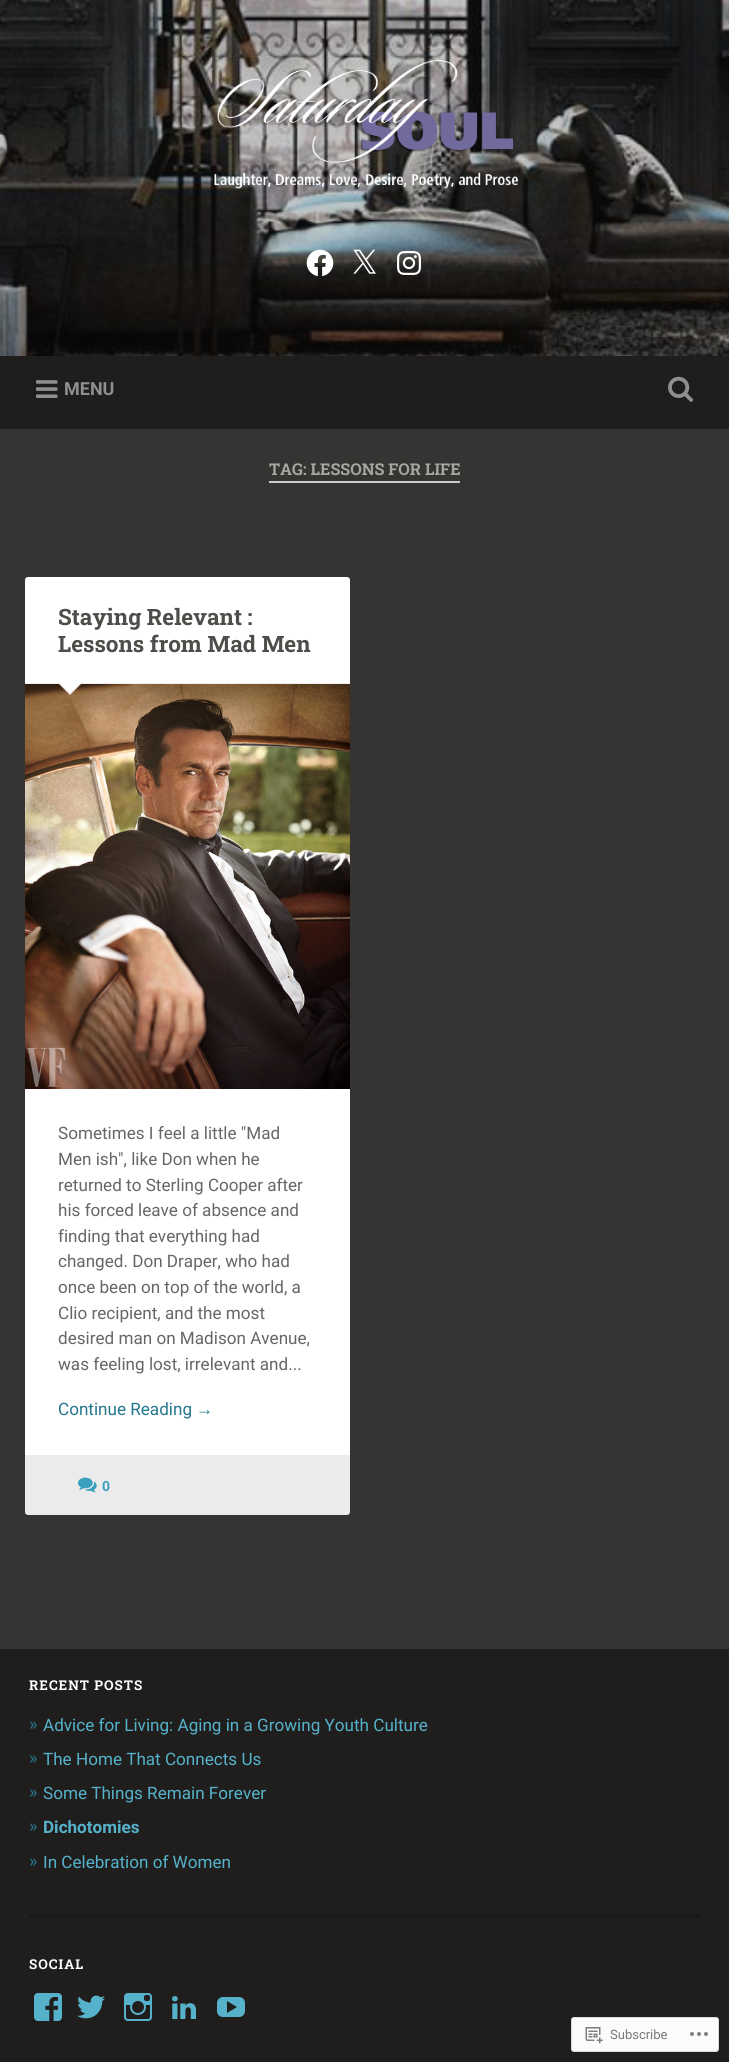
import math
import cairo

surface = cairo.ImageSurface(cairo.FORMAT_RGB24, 729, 2062)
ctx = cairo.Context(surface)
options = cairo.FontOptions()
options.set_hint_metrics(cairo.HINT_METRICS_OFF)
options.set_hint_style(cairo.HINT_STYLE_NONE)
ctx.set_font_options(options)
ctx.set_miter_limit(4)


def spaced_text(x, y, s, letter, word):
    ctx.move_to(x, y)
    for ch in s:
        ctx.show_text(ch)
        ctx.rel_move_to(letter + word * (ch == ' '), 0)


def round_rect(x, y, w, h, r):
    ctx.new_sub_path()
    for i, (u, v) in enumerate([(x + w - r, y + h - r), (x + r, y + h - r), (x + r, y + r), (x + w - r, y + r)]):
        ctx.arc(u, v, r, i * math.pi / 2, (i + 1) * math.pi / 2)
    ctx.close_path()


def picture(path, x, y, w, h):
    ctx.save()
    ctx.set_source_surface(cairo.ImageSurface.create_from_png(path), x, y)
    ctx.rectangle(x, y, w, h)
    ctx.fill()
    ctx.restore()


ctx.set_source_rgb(0.208, 0.204, 0.196)
ctx.paint()
picture("img1.png", 0, 0, 729, 356)
picture("img2.png", 214, 60, 305, 129)
picture("img3.png", 306, 249, 28, 28)
picture("img4.png", 353, 249, 23, 25)
picture("img5.png", 397, 251, 24, 24)
ctx.set_source_rgb(0.122, 0.118, 0.114)
ctx.rectangle(0, 356, 729, 73)
ctx.fill()
picture("img6.png", 36, 380, 22, 18)
ctx.select_font_face("Roboto", cairo.FONT_SLANT_NORMAL, cairo.FONT_WEIGHT_BOLD)
ctx.set_font_size(18)
ctx.set_source_rgb(0.561, 0.561, 0.557)
ctx.move_to(64, 395)
ctx.show_text("MENU")
picture("img7.png", 668, 376, 25, 26)
ctx.set_source_rgb(0.8, 0.8, 0.8)
ctx.rectangle(269, 481, 191, 2)
ctx.fill()
ctx.select_font_face("Roboto Slab", cairo.FONT_SLANT_NORMAL, cairo.FONT_WEIGHT_BOLD)
ctx.set_font_size(16.25)
ctx.set_source_rgb(0.659, 0.651, 0.639)
ctx.move_to(269, 475)
ctx.show_text("TAG: LESSONS FOR LIFE")
ctx.set_source_rgb(1, 1, 1)
round_rect(25, 577, 325, 938, 3)
ctx.fill()
ctx.set_source_rgb(0.933, 0.933, 0.933)
ctx.rectangle(25, 683, 325, 1)
ctx.fill()
ctx.set_font_size(22.5)
ctx.set_source_rgb(0.306, 0.302, 0.29)
ctx.move_to(58, 625)
ctx.show_text("Staying Relevant :")
ctx.move_to(58, 652)
ctx.show_text("Lessons from Mad Men")
picture("img8.png", 25, 684, 325, 405)
ctx.set_source_rgb(0.933, 0.933, 0.933)
ctx.new_path()
ctx.move_to(58, 683)
ctx.line_to(82, 683)
ctx.line_to(70, 695)
ctx.close_path()
ctx.fill()
ctx.set_source_rgb(1, 1, 1)
ctx.new_path()
ctx.move_to(59, 682)
ctx.line_to(81, 682)
ctx.line_to(70, 693)
ctx.close_path()
ctx.fill()
ctx.select_font_face("Roboto")
ctx.set_font_size(17.1)
ctx.set_source_rgb(0.4, 0.4, 0.4)
ctx.move_to(58, 1139)
ctx.show_text("Sometimes I feel a little \"Mad")
ctx.move_to(58, 1165)
ctx.show_text("Men ish\", like Don when he")
ctx.move_to(58, 1191)
ctx.show_text("returned to Sterling Cooper after")
ctx.move_to(58, 1216)
ctx.show_text("his forced leave of absence and")
ctx.move_to(58, 1242)
ctx.show_text("finding that everything had")
ctx.move_to(58, 1267)
ctx.show_text("changed. Don Draper, who had")
ctx.move_to(58, 1293)
ctx.show_text("once been on top of the world, a")
ctx.move_to(58, 1319)
ctx.show_text("Clio recipient, and the most")
ctx.move_to(58, 1344)
ctx.show_text("desired man on Madison Avenue,")
ctx.move_to(58, 1370)
ctx.show_text("was feeling lost, irrelevant and...")
ctx.set_source_rgb(0.141, 0.467, 0.553)
ctx.move_to(58, 1415)
ctx.show_text("Continue Reading")
ctx.select_font_face("Liberation Sans")
ctx.move_to(196, 1415)
ctx.show_text("→")
ctx.set_source_rgba(0.208, 0.204, 0.196, 0.1)
ctx.new_path()
ctx.move_to(25, 1455)
ctx.line_to(350, 1455)
ctx.line_to(350, 1512)
ctx.curve_to(350, 1513.5, 348.5, 1515, 347, 1515)
ctx.line_to(28, 1515)
ctx.curve_to(26.5, 1515, 25, 1513.5, 25, 1512)
ctx.close_path()
ctx.fill()
picture("img9.png", 78, 1477, 19, 16)
ctx.select_font_face("Roboto", cairo.FONT_SLANT_NORMAL, cairo.FONT_WEIGHT_BOLD)
ctx.set_font_size(14)
ctx.set_source_rgb(0.22, 0.624, 0.737)
ctx.move_to(102, 1491)
ctx.show_text("0")
ctx.set_source_rgb(0.122, 0.118, 0.114)
ctx.rectangle(0, 1649, 729, 413)
ctx.fill()
ctx.select_font_face("Roboto Slab", cairo.FONT_SLANT_NORMAL, cairo.FONT_WEIGHT_BOLD)
ctx.set_font_size(13.5)
ctx.set_source_rgb(1, 1, 1)
spaced_text(29, 1690, "RECENT POSTS", 1, 0)
ctx.select_font_face("Roboto")
ctx.set_font_size(18)
ctx.set_source_rgb(0.141, 0.467, 0.553)
ctx.move_to(29, 1730)
ctx.show_text("»")
ctx.set_font_size(17.1)
ctx.set_source_rgb(0.337, 0.698, 0.796)
ctx.move_to(43, 1731)
ctx.show_text("Advice for Living: Aging in a Growing Youth Culture")
ctx.set_font_size(18)
ctx.set_source_rgb(0.141, 0.467, 0.553)
ctx.move_to(29, 1764)
ctx.show_text("»")
ctx.set_font_size(17.1)
ctx.set_source_rgb(0.337, 0.698, 0.796)
ctx.move_to(43, 1765)
ctx.show_text("The Home That Connects Us")
ctx.set_font_size(18)
ctx.set_source_rgb(0.141, 0.467, 0.553)
ctx.move_to(29, 1798)
ctx.show_text("»")
ctx.set_font_size(17.1)
ctx.set_source_rgb(0.337, 0.698, 0.796)
ctx.move_to(43, 1799)
ctx.show_text("Some Things Remain Forever")
ctx.set_font_size(18)
ctx.set_source_rgb(0.141, 0.467, 0.553)
ctx.move_to(29, 1832)
ctx.show_text("»")
ctx.select_font_face("Roboto", cairo.FONT_SLANT_NORMAL, cairo.FONT_WEIGHT_BOLD)
ctx.set_font_size(17.1)
ctx.set_source_rgb(0.337, 0.698, 0.796)
ctx.move_to(43, 1833)
ctx.show_text("Dichotomies")
ctx.select_font_face("Roboto")
ctx.set_font_size(18)
ctx.set_source_rgb(0.141, 0.467, 0.553)
ctx.move_to(29, 1867)
ctx.show_text("»")
ctx.set_font_size(17.1)
ctx.set_source_rgb(0.337, 0.698, 0.796)
ctx.move_to(43, 1868)
ctx.show_text("In Celebration of Women")
ctx.set_source_rgb(0.102, 0.098, 0.094)
ctx.rectangle(29, 1914, 671, 4)
ctx.fill()
ctx.select_font_face("Roboto Slab", cairo.FONT_SLANT_NORMAL, cairo.FONT_WEIGHT_BOLD)
ctx.set_font_size(13.5)
ctx.set_source_rgb(1, 1, 1)
spaced_text(29, 1969, "SOCIAL", 1, 0)
picture("img10.png", 34, 1993, 28, 28)
picture("img11.png", 77, 1995, 28, 24)
picture("img12.png", 124, 1993, 28, 28)
picture("img13.png", 172, 1996, 24, 23)
picture("img14.png", 217, 1997, 28, 20)
ctx.set_source_rgb(0.984, 0.984, 0.98)
round_rect(571.5, 2017.5, 147, 34, 2.5)
ctx.fill_preserve()
ctx.set_source_rgb(0.847, 0.847, 0.855)
ctx.set_line_width(1)
ctx.stroke()
picture("img15.png", 585, 2027, 18, 17)
ctx.select_font_face("Roboto")
ctx.set_font_size(13)
ctx.set_source_rgb(0.463, 0.478, 0.502)
ctx.move_to(610, 2039)
ctx.show_text("Subscribe")
picture("img16.png", 690, 2032, 18, 4)
surface.write_to_png("page.png")
